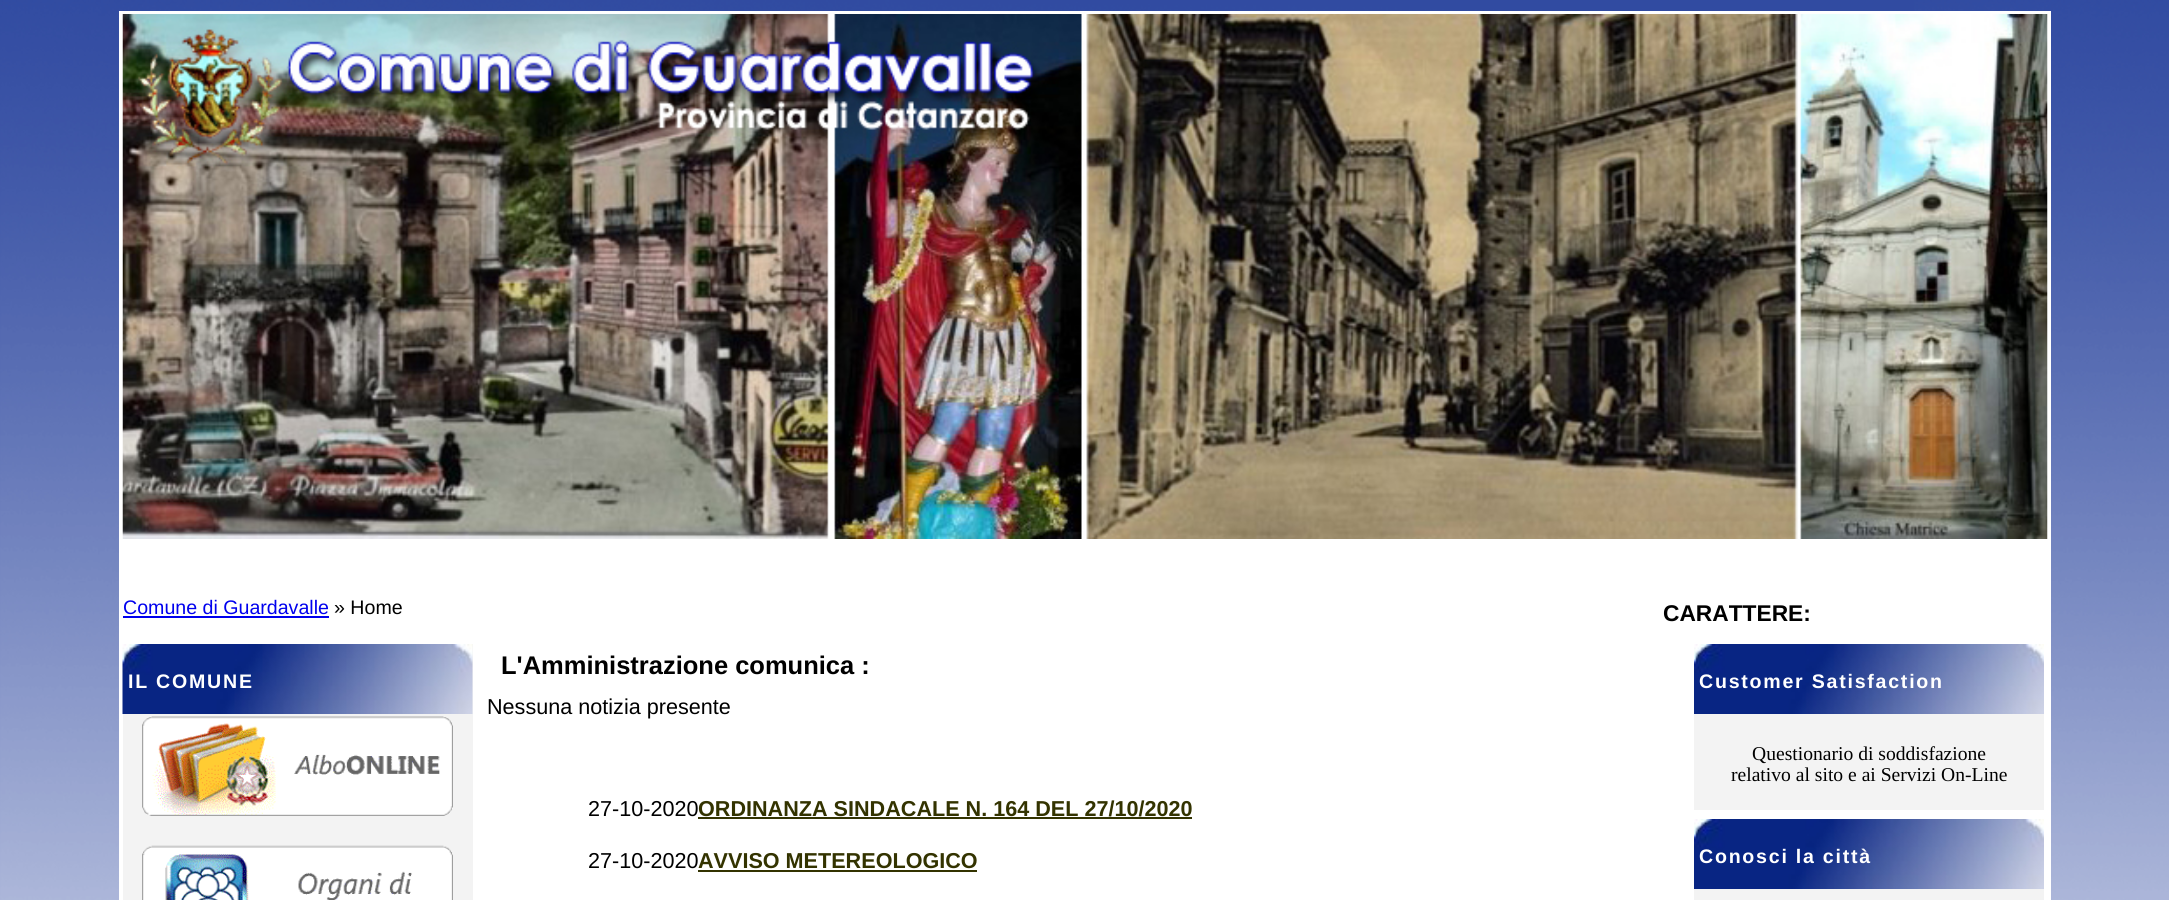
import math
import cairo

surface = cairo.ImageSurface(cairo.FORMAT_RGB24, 2169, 900)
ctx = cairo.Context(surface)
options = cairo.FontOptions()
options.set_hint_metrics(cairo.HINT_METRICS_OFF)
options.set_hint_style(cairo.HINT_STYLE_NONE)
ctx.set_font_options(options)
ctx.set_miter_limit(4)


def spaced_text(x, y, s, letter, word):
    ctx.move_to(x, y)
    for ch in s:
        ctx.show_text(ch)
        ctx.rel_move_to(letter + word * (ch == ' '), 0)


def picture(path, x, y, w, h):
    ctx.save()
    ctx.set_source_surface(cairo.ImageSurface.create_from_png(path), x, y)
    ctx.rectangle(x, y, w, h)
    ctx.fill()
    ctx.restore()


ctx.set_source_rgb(1, 1, 1)
ctx.paint()
picture("img1.png", 0, 0, 2169, 900)
ctx.set_source_rgb(1, 1, 1)
ctx.rectangle(119, 11, 1932, 889)
ctx.fill()
ctx.select_font_face("Liberation Sans")
ctx.set_font_size(19.6)
ctx.set_source_rgb(0, 0, 0.933)
ctx.move_to(123, 614)
ctx.show_text("Comune di Guardavalle")
ctx.rectangle(123, 616, 206, 2)
ctx.fill()
ctx.set_source_rgb(0, 0, 0)
ctx.move_to(334, 614)
ctx.show_text("» Home")
picture("img2.png", 122, 14, 1926, 525)
ctx.select_font_face("Liberation Sans", cairo.FONT_SLANT_NORMAL, cairo.FONT_WEIGHT_BOLD)
ctx.set_font_size(22.75)
ctx.move_to(1663, 621)
ctx.show_text("CARATTERE:")
ctx.set_source_rgb(0.953, 0.953, 0.953)
ctx.rectangle(123, 644, 350, 256)
ctx.fill()
picture("img3.png", 122, 644, 351, 70)
ctx.set_font_size(19.6)
ctx.set_source_rgb(1, 1, 1)
spaced_text(128, 688, "IL COMUNE", 1.75, 0)
picture("img4.png", 142, 716, 311, 100)
picture("img5.png", 142, 845, 311, 55)
ctx.set_font_size(25.5)
ctx.set_source_rgb(0, 0, 0)
ctx.move_to(501, 674)
ctx.show_text("L'Amministrazione comunica :")
ctx.select_font_face("Liberation Sans")
ctx.set_font_size(21.6)
ctx.move_to(487, 714)
ctx.show_text("Nessuna notizia presente")
ctx.move_to(588, 816)
ctx.show_text("27-10-2020")
ctx.select_font_face("Liberation Sans", cairo.FONT_SLANT_NORMAL, cairo.FONT_WEIGHT_BOLD)
ctx.set_source_rgb(0.2, 0.2, 0)
ctx.move_to(698, 816)
ctx.show_text("ORDINANZA SINDACALE N. 164 DEL 27/10/2020")
ctx.rectangle(698, 817, 494, 2)
ctx.fill()
ctx.select_font_face("Liberation Sans")
ctx.set_source_rgb(0, 0, 0)
ctx.move_to(588, 868)
ctx.show_text("27-10-2020")
ctx.select_font_face("Liberation Sans", cairo.FONT_SLANT_NORMAL, cairo.FONT_WEIGHT_BOLD)
ctx.set_source_rgb(0.2, 0.2, 0)
ctx.move_to(698, 868)
ctx.show_text("AVVISO METEREOLOGICO")
ctx.rectangle(698, 870, 279, 2)
ctx.fill()
ctx.set_source_rgb(0.953, 0.953, 0.953)
ctx.rectangle(1694, 714, 350, 96)
ctx.fill()
picture("img6.png", 1694, 644, 350, 70)
ctx.set_font_size(19.6)
ctx.set_source_rgb(1, 1, 1)
spaced_text(1699, 688, "Customer Satisfaction", 1.75, 0)
ctx.select_font_face("Liberation Serif")
ctx.set_source_rgb(0, 0, 0)
ctx.move_to(1752, 760)
ctx.show_text("Questionario di soddisfazione")
ctx.move_to(1731, 781)
ctx.show_text("relativo al sito e ai Servizi On-Line")
ctx.set_source_rgb(0.953, 0.953, 0.953)
ctx.rectangle(1694, 889, 350, 11)
ctx.fill()
picture("img6.png", 1694, 819, 350, 70)
ctx.select_font_face("Liberation Sans", cairo.FONT_SLANT_NORMAL, cairo.FONT_WEIGHT_BOLD)
ctx.set_source_rgb(1, 1, 1)
spaced_text(1699, 863, "Conosci la città", 1.75, 0)
surface.write_to_png("page.png")
